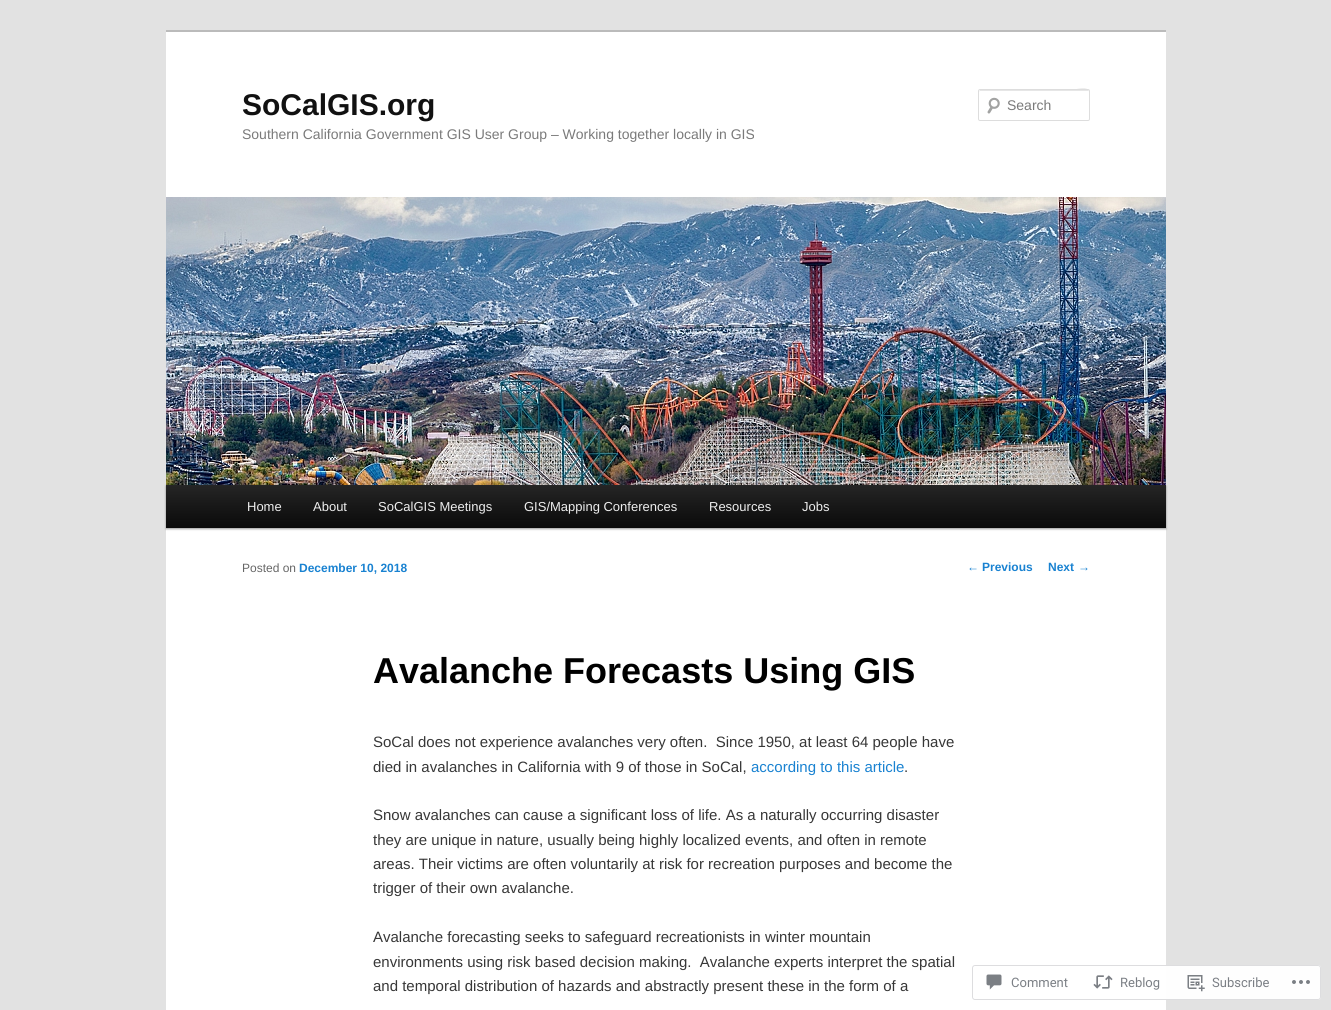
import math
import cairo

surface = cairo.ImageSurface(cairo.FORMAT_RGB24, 1331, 1010)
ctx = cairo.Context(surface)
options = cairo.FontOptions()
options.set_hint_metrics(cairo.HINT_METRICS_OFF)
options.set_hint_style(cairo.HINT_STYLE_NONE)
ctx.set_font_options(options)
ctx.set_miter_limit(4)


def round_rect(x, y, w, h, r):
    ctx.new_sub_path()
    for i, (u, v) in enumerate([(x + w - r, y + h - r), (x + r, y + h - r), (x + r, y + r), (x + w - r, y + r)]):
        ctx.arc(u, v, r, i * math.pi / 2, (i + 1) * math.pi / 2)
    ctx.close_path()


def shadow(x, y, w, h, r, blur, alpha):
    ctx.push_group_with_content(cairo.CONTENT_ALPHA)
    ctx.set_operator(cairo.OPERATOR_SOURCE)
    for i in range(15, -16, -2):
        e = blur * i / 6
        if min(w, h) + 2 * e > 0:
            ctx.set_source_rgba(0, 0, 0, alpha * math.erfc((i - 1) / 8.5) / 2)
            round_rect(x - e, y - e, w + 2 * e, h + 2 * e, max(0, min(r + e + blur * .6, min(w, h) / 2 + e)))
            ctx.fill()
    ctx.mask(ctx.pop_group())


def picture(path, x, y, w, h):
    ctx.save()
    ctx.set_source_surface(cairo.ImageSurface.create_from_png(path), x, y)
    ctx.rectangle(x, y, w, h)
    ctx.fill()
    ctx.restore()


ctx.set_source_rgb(0.886, 0.886, 0.886)
ctx.paint()
ctx.set_source_rgb(1, 1, 1)
ctx.rectangle(166, 32, 1000, 978)
ctx.fill()
ctx.set_source_rgb(0.733, 0.733, 0.733)
ctx.rectangle(166, 30, 1000, 2)
ctx.fill()
ctx.select_font_face("Liberation Sans", cairo.FONT_SLANT_NORMAL, cairo.FONT_WEIGHT_BOLD)
ctx.set_font_size(30)
ctx.set_source_rgb(0.067, 0.067, 0.067)
ctx.move_to(242, 115)
ctx.show_text("SoCalGIS.org")
ctx.select_font_face("Liberation Sans")
ctx.set_font_size(14)
ctx.set_source_rgb(0.478, 0.478, 0.478)
ctx.move_to(242, 139)
ctx.show_text("Southern California Government GIS User Group – Working together locally in GIS")
picture("img1.png", 987, 97, 13, 17)
ctx.set_source_rgb(0.902, 0.902, 0.902)
ctx.new_path()
ctx.move_to(980, 91)
ctx.line_to(1089, 91)
ctx.line_to(1089, 92)
ctx.curve_to(1089, 85, 1074, 90, 1070, 90)
ctx.line_to(980, 90)
ctx.line_to(979, 92)
ctx.curve_to(979, 91, 979, 91, 980, 91)
ctx.close_path()
ctx.fill()
round_rect(978.5, 89.5, 111, 31, 1.5)
ctx.set_source_rgb(0.867, 0.867, 0.867)
ctx.set_line_width(1)
ctx.stroke()
ctx.set_source_rgb(0.478, 0.478, 0.478)
ctx.move_to(1007, 110)
ctx.show_text("Search")
ctx.set_source_rgb(0, 0, 0)
shadow(166, 486, 1000, 43, 0, 1, 0.4)
picture("img2.png", 166, 197, 1000, 288)
gradient = cairo.LinearGradient(666, 485, 666, 528)
gradient.add_color_stop_rgba(0, 0.145, 0.145, 0.145, 1)
gradient.add_color_stop_rgba(1, 0.039, 0.039, 0.039, 1)
ctx.set_source(gradient)
ctx.rectangle(166, 485, 1000, 43)
ctx.fill()
ctx.set_font_size(13)
ctx.set_source_rgb(0.933, 0.933, 0.933)
ctx.move_to(247, 511)
ctx.show_text("Home")
ctx.move_to(313, 511)
ctx.show_text("About")
ctx.move_to(378, 511)
ctx.show_text("SoCalGIS Meetings")
ctx.move_to(524, 511)
ctx.show_text("GIS/Mapping Conferences")
ctx.move_to(709, 511)
ctx.show_text("Resources")
ctx.move_to(802, 511)
ctx.show_text("Jobs")
ctx.set_font_size(12)
ctx.set_source_rgb(0.4, 0.4, 0.4)
ctx.move_to(242, 572)
ctx.show_text("Posted on")
ctx.select_font_face("Liberation Sans", cairo.FONT_SLANT_NORMAL, cairo.FONT_WEIGHT_BOLD)
ctx.set_source_rgb(0.098, 0.51, 0.82)
ctx.move_to(299, 572)
ctx.show_text("December 10, 2018")
ctx.set_font_size(36)
ctx.set_source_rgb(0, 0, 0)
ctx.move_to(373, 683)
ctx.show_text("Avalanche Forecasts Using GIS")
ctx.select_font_face("Liberation Sans")
ctx.set_font_size(15)
ctx.set_source_rgb(0.216, 0.216, 0.216)
ctx.move_to(373, 747)
ctx.show_text("SoCal does not experience avalanches very often.  Since 1950, at least 64 people have")
ctx.move_to(373, 772)
ctx.show_text("died in avalanches in California with 9 of those in SoCal,")
ctx.set_source_rgb(0.098, 0.51, 0.82)
ctx.move_to(751, 772)
ctx.show_text("according to this article")
ctx.set_source_rgb(0.216, 0.216, 0.216)
ctx.move_to(904, 772)
ctx.show_text(".")
ctx.move_to(373, 820)
ctx.show_text("Snow avalanches can cause a significant loss of life. As a naturally occurring disaster")
ctx.move_to(373, 845)
ctx.show_text("they are unique in nature, usually being highly localized events, and often in remote")
ctx.move_to(373, 869)
ctx.show_text("areas. Their victims are often voluntarily at risk for recreation purposes and become the")
ctx.move_to(373, 893)
ctx.show_text("trigger of their own avalanche.")
ctx.move_to(373, 942)
ctx.show_text("Avalanche forecasting seeks to safeguard recreationists in winter mountain")
ctx.move_to(373, 967)
ctx.show_text("environments using risk based decision making.  Avalanche experts interpret the spatial")
ctx.move_to(373, 991)
ctx.show_text("and temporal distribution of hazards and abstractly present these in the form of a")
ctx.set_font_size(12)
ctx.set_source_rgb(0.098, 0.51, 0.82)
ctx.move_to(967, 571)
ctx.show_text("←")
ctx.select_font_face("Liberation Sans", cairo.FONT_SLANT_NORMAL, cairo.FONT_WEIGHT_BOLD)
ctx.move_to(982, 571)
ctx.show_text("Previous")
ctx.move_to(1048, 571)
ctx.show_text("Next")
ctx.select_font_face("Liberation Sans")
ctx.move_to(1078, 571)
ctx.show_text("→")
ctx.set_source_rgba(1, 1, 1, 0.98)
round_rect(972, 965, 349, 35, 3)
ctx.fill()
round_rect(972.5, 965.5, 348, 34, 2.5)
ctx.set_source_rgba(0.863, 0.863, 0.871, 0.98)
ctx.stroke()
picture("img3.png", 986, 974, 16, 16)
ctx.select_font_face("Roboto")
ctx.set_font_size(13)
ctx.set_source_rgb(0.482, 0.498, 0.522)
ctx.move_to(1011, 987)
ctx.show_text("Comment")
picture("img4.png", 1093, 975, 20, 14)
ctx.move_to(1120, 987)
ctx.show_text("Reblog")
picture("img5.png", 1187, 975, 18, 17)
ctx.move_to(1212, 987)
ctx.show_text("Subscribe")
picture("img6.png", 1292, 980, 18, 4)
surface.write_to_png("page.png")
